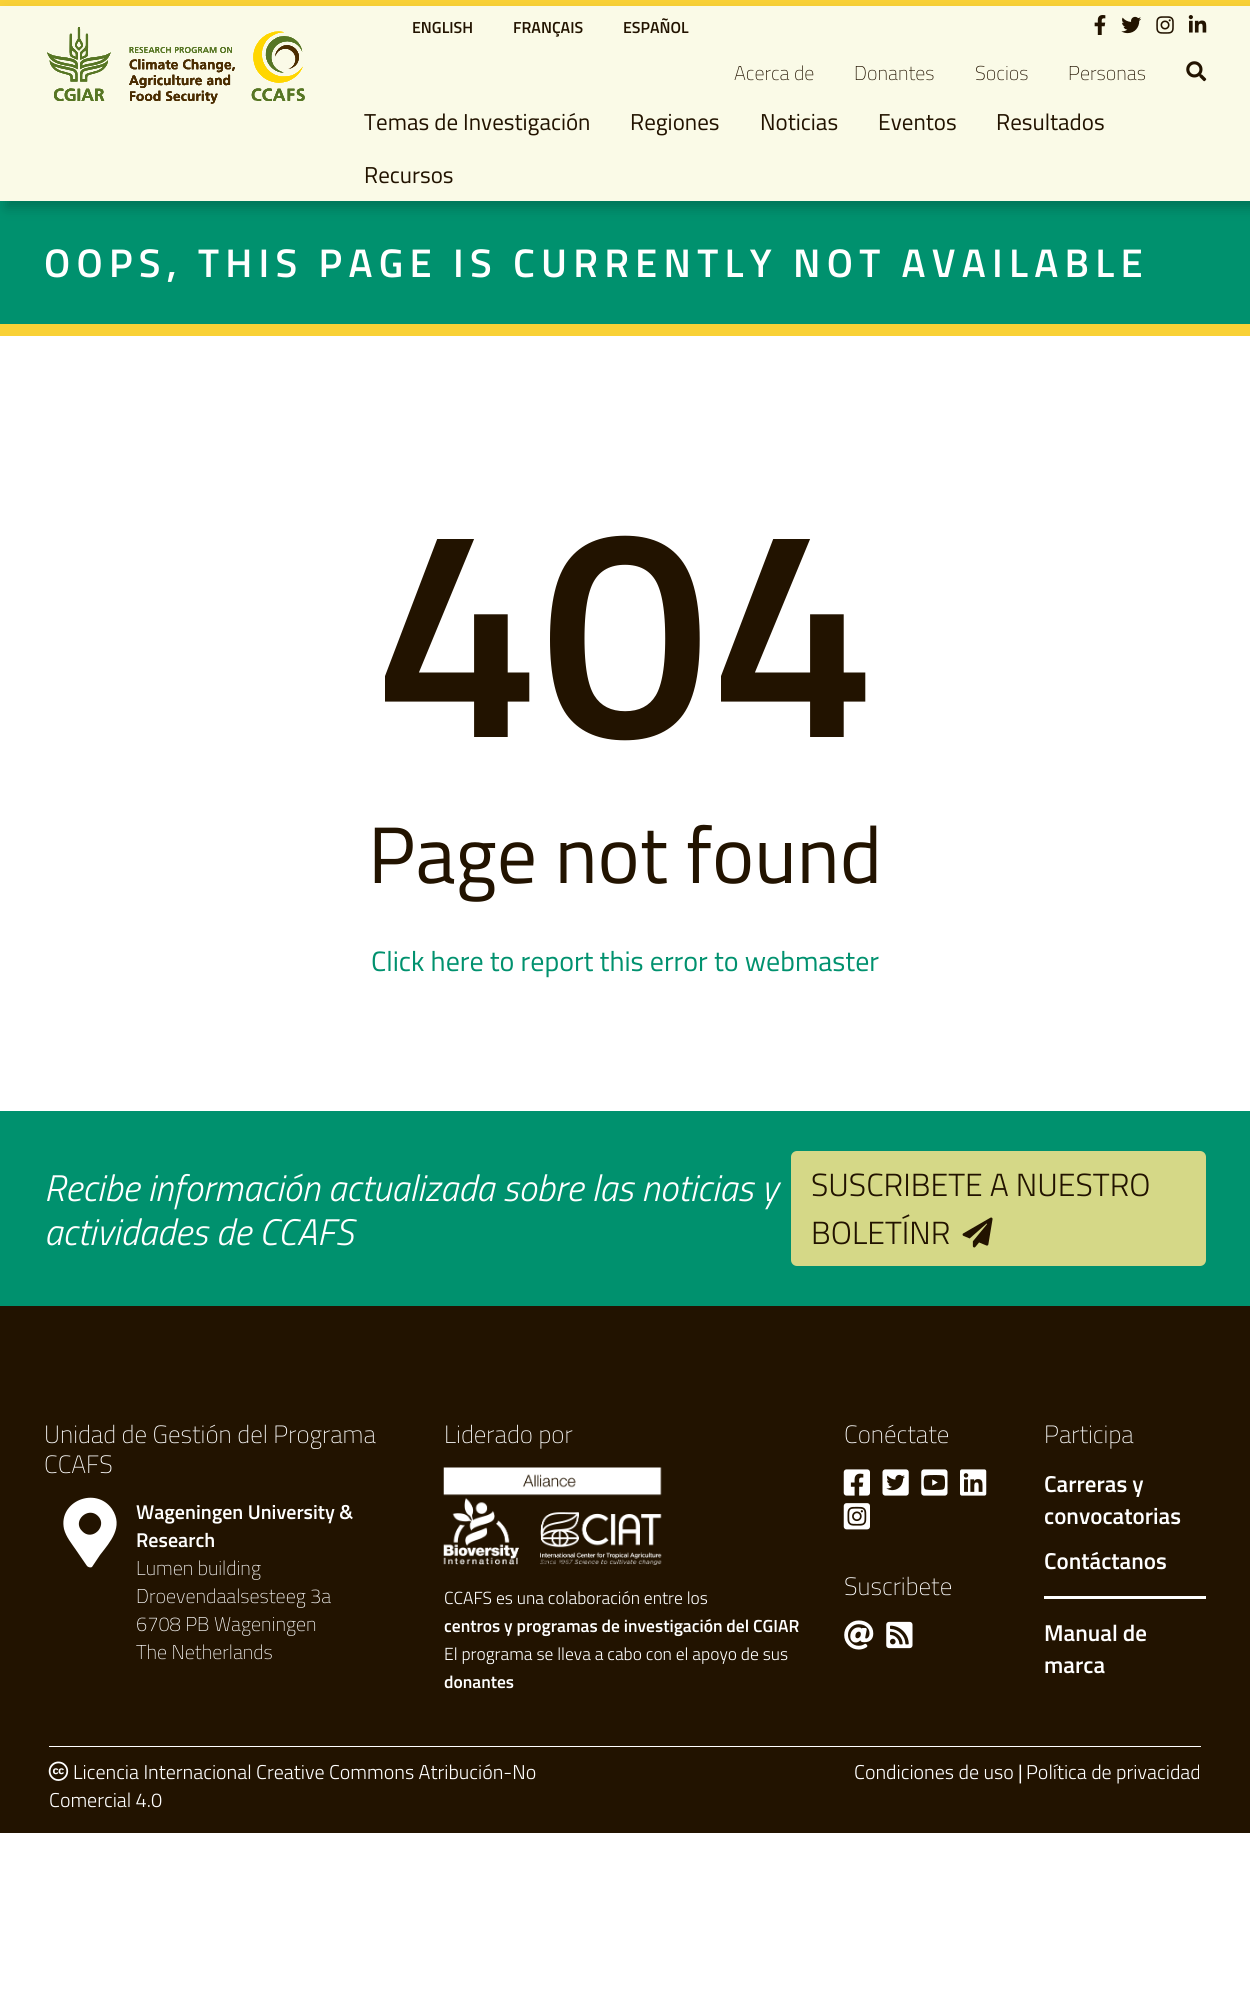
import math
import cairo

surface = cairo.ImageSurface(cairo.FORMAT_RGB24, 1250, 1997)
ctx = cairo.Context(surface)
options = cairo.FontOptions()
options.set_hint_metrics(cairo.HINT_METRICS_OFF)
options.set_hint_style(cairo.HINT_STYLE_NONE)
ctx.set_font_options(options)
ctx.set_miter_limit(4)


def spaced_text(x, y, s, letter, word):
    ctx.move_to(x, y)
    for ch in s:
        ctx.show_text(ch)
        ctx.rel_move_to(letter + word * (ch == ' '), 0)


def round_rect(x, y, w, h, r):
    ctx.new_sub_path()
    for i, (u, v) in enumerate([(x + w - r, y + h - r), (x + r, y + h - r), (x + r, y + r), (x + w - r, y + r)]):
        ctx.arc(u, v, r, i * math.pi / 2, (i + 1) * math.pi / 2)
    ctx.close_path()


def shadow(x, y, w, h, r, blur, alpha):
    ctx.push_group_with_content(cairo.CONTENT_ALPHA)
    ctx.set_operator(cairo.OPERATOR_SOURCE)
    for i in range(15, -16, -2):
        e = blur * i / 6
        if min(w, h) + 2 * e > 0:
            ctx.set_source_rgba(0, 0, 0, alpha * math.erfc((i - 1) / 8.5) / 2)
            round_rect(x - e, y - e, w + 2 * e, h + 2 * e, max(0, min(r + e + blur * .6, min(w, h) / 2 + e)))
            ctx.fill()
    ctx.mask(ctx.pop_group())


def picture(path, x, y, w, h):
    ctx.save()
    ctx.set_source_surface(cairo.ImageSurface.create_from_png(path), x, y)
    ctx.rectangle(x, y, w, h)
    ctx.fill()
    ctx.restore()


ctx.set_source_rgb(1, 1, 1)
ctx.paint()
ctx.set_source_rgb(0.976, 0.82, 0.212)
ctx.rectangle(0, 0, 1250, 6)
ctx.fill()
ctx.set_source_rgb(0, 0.569, 0.431)
ctx.rectangle(0, 201, 1250, 123)
ctx.fill()
ctx.set_source_rgb(0, 0, 0)
shadow(6, 13, 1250, 195, 0, 6, 0.2)
ctx.set_source_rgb(0.98, 0.98, 0.906)
ctx.rectangle(0, 6, 1250, 195)
ctx.fill()
picture("img1.png", 47, 27, 258, 77)
ctx.select_font_face("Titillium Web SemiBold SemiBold")
ctx.set_font_size(16)
ctx.set_source_rgb(0.133, 0.075, 0)
ctx.move_to(412, 33)
ctx.show_text("ENGLISH")
ctx.move_to(513, 33)
ctx.show_text("FRANÇAIS")
ctx.move_to(623, 33)
ctx.show_text("ESPAÑOL")
picture("img2.png", 1094, 15, 12, 20)
picture("img3.png", 1121, 16, 21, 18)
picture("img4.png", 1156, 16, 18, 18)
picture("img5.png", 1188, 15, 19, 18)
ctx.select_font_face("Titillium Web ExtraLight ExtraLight")
ctx.set_font_size(20)
ctx.move_to(734, 80)
ctx.show_text("Acerca de")
ctx.move_to(854, 80)
ctx.show_text("Donantes")
ctx.move_to(975, 80)
ctx.show_text("Socios")
ctx.move_to(1068, 80)
ctx.show_text("Personas")
picture("img6.png", 1186, 61, 21, 21)
ctx.select_font_face("Titillium Web")
ctx.set_font_size(23)
ctx.move_to(364, 130)
ctx.show_text("Temas de Investigación")
ctx.move_to(630, 130)
ctx.show_text("Regiones")
ctx.move_to(760, 130)
ctx.show_text("Noticias")
ctx.move_to(878, 130)
ctx.show_text("Eventos")
ctx.move_to(996, 130)
ctx.show_text("Resultados")
ctx.move_to(364, 183)
ctx.show_text("Recursos")
ctx.set_source_rgb(0.976, 0.82, 0.212)
ctx.rectangle(0, 324, 1250, 12)
ctx.fill()
ctx.select_font_face("Titillium Web SemiBold SemiBold")
ctx.set_font_size(40)
ctx.set_source_rgb(1, 1, 1)
spaced_text(44, 277, "OOPS, THIS PAGE IS CURRENTLY NOT AVAILABLE", 6.25, 0)
ctx.set_font_size(300)
ctx.set_source_rgb(0.133, 0.075, 0)
ctx.move_to(373, 737)
ctx.show_text("404")
ctx.select_font_face("Titillium Web")
ctx.set_font_size(80)
ctx.move_to(368, 883)
ctx.show_text("Page not found")
ctx.set_font_size(28)
ctx.set_source_rgb(0, 0.569, 0.431)
ctx.move_to(371, 971)
ctx.show_text("Click here to report this error to webmaster")
ctx.rectangle(0, 1111, 1250, 195)
ctx.fill()
ctx.select_font_face("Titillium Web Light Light", cairo.FONT_SLANT_ITALIC)
ctx.set_font_size(37)
ctx.set_source_rgb(1, 1, 1)
ctx.move_to(44, 1201)
ctx.show_text("Recibe información actualizada sobre las noticias y")
ctx.move_to(44, 1245)
ctx.show_text("actividades de CCAFS")
ctx.set_source_rgb(0.835, 0.847, 0.529)
round_rect(791, 1151, 415, 115, 6)
ctx.fill()
ctx.select_font_face("Titillium Web Light Light")
ctx.set_font_size(32)
ctx.set_source_rgb(0.133, 0.075, 0)
ctx.move_to(811, 1196)
ctx.show_text("SUSCRIBETE A NUESTRO")
ctx.move_to(811, 1244)
ctx.show_text("BOLETÍNR")
picture("img7.png", 962, 1217, 31, 31)
ctx.rectangle(0, 1306, 1250, 527)
ctx.fill()
ctx.select_font_face("Titillium Web ExtraLight ExtraLight")
ctx.set_font_size(25)
ctx.set_source_rgb(1, 1, 1)
ctx.move_to(44, 1443)
ctx.show_text("Unidad de Gestión del Programa")
ctx.move_to(44, 1473)
ctx.show_text("CCAFS")
ctx.new_path()
ctx.move_to(87, 1566)
ctx.line_to(76, 1550)
ctx.curve_to(72, 1544, 66, 1537, 64, 1529)
ctx.curve_to(58, 1501, 96, 1486, 112, 1509)
ctx.curve_to(124, 1527, 110, 1542, 100, 1555)
ctx.line_to(92, 1567)
ctx.curve_to(90, 1568, 88, 1567, 87, 1566)
ctx.close_path()
ctx.move_to(82, 1531)
ctx.curve_to(92, 1542, 108, 1526, 98, 1516)
ctx.curve_to(88, 1506, 72, 1521, 82, 1531)
ctx.close_path()
ctx.fill()
ctx.select_font_face("Titillium Web SemiBold SemiBold")
ctx.set_font_size(20)
ctx.move_to(136, 1519)
ctx.show_text("Wageningen University &")
ctx.move_to(136, 1547)
ctx.show_text("Research")
ctx.select_font_face("Titillium Web ExtraLight ExtraLight")
ctx.move_to(136, 1575)
ctx.show_text("Lumen building")
ctx.move_to(136, 1603)
ctx.show_text("Droevendaalsesteeg 3a")
ctx.move_to(136, 1631)
ctx.show_text("6708 PB Wageningen")
ctx.move_to(136, 1659)
ctx.show_text("The Netherlands")
ctx.set_font_size(25)
ctx.move_to(444, 1443)
ctx.show_text("Liderado por")
picture("img8.png", 443, 1467, 219, 98)
ctx.select_font_face("Titillium Web Light Light")
ctx.set_font_size(17.5)
ctx.move_to(444, 1604)
ctx.show_text("CCAFS es una colaboración entre los")
ctx.select_font_face("Titillium Web SemiBold SemiBold")
ctx.move_to(444, 1632)
ctx.show_text("centros y programas de investigación del CGIAR")
ctx.select_font_face("Titillium Web Light Light")
ctx.move_to(444, 1660)
ctx.show_text("El programa se lleva a cabo con el apoyo de sus")
ctx.select_font_face("Titillium Web SemiBold SemiBold")
ctx.move_to(444, 1688)
ctx.show_text("donantes")
ctx.select_font_face("Titillium Web ExtraLight ExtraLight")
ctx.set_font_size(25)
ctx.move_to(844, 1443)
ctx.show_text("Conéctate")
picture("img9.png", 843, 1469, 27, 27)
picture("img10.png", 882, 1469, 27, 27)
picture("img11.png", 921, 1469, 27, 27)
picture("img12.png", 960, 1469, 27, 27)
picture("img13.png", 843, 1503, 27, 27)
ctx.move_to(844, 1595)
ctx.show_text("Suscribete")
picture("img14.png", 844, 1620, 30, 30)
picture("img15.png", 886, 1621, 27, 28)
ctx.move_to(1044, 1443)
ctx.show_text("Participa")
ctx.select_font_face("Titillium Web SemiBold SemiBold")
ctx.set_font_size(23)
ctx.move_to(1044, 1492)
ctx.show_text("Carreras y")
ctx.move_to(1044, 1524)
ctx.show_text("convocatorias")
ctx.move_to(1044, 1569)
ctx.show_text("Contáctanos")
ctx.rectangle(1044, 1596, 162, 3)
ctx.fill()
ctx.move_to(1044, 1641)
ctx.show_text("Manual de")
ctx.move_to(1044, 1673)
ctx.show_text("marca")
ctx.rectangle(49, 1746, 1152, 1)
ctx.fill()
picture("img16.png", 48, 1761, 21, 20)
ctx.select_font_face("Titillium Web Light Light")
ctx.set_font_size(20)
ctx.move_to(73, 1779)
ctx.show_text("Licencia Internacional Creative Commons Atribución-No")
ctx.move_to(49, 1807)
ctx.show_text("Comercial 4.0")
ctx.move_to(854, 1779)
ctx.show_text("Condiciones de uso")
ctx.select_font_face("Titillium Web")
ctx.move_to(1018, 1779)
ctx.show_text("|")
ctx.select_font_face("Titillium Web Light Light")
ctx.move_to(1026, 1779)
ctx.show_text("Política de privacidad")
surface.write_to_png("page.png")
